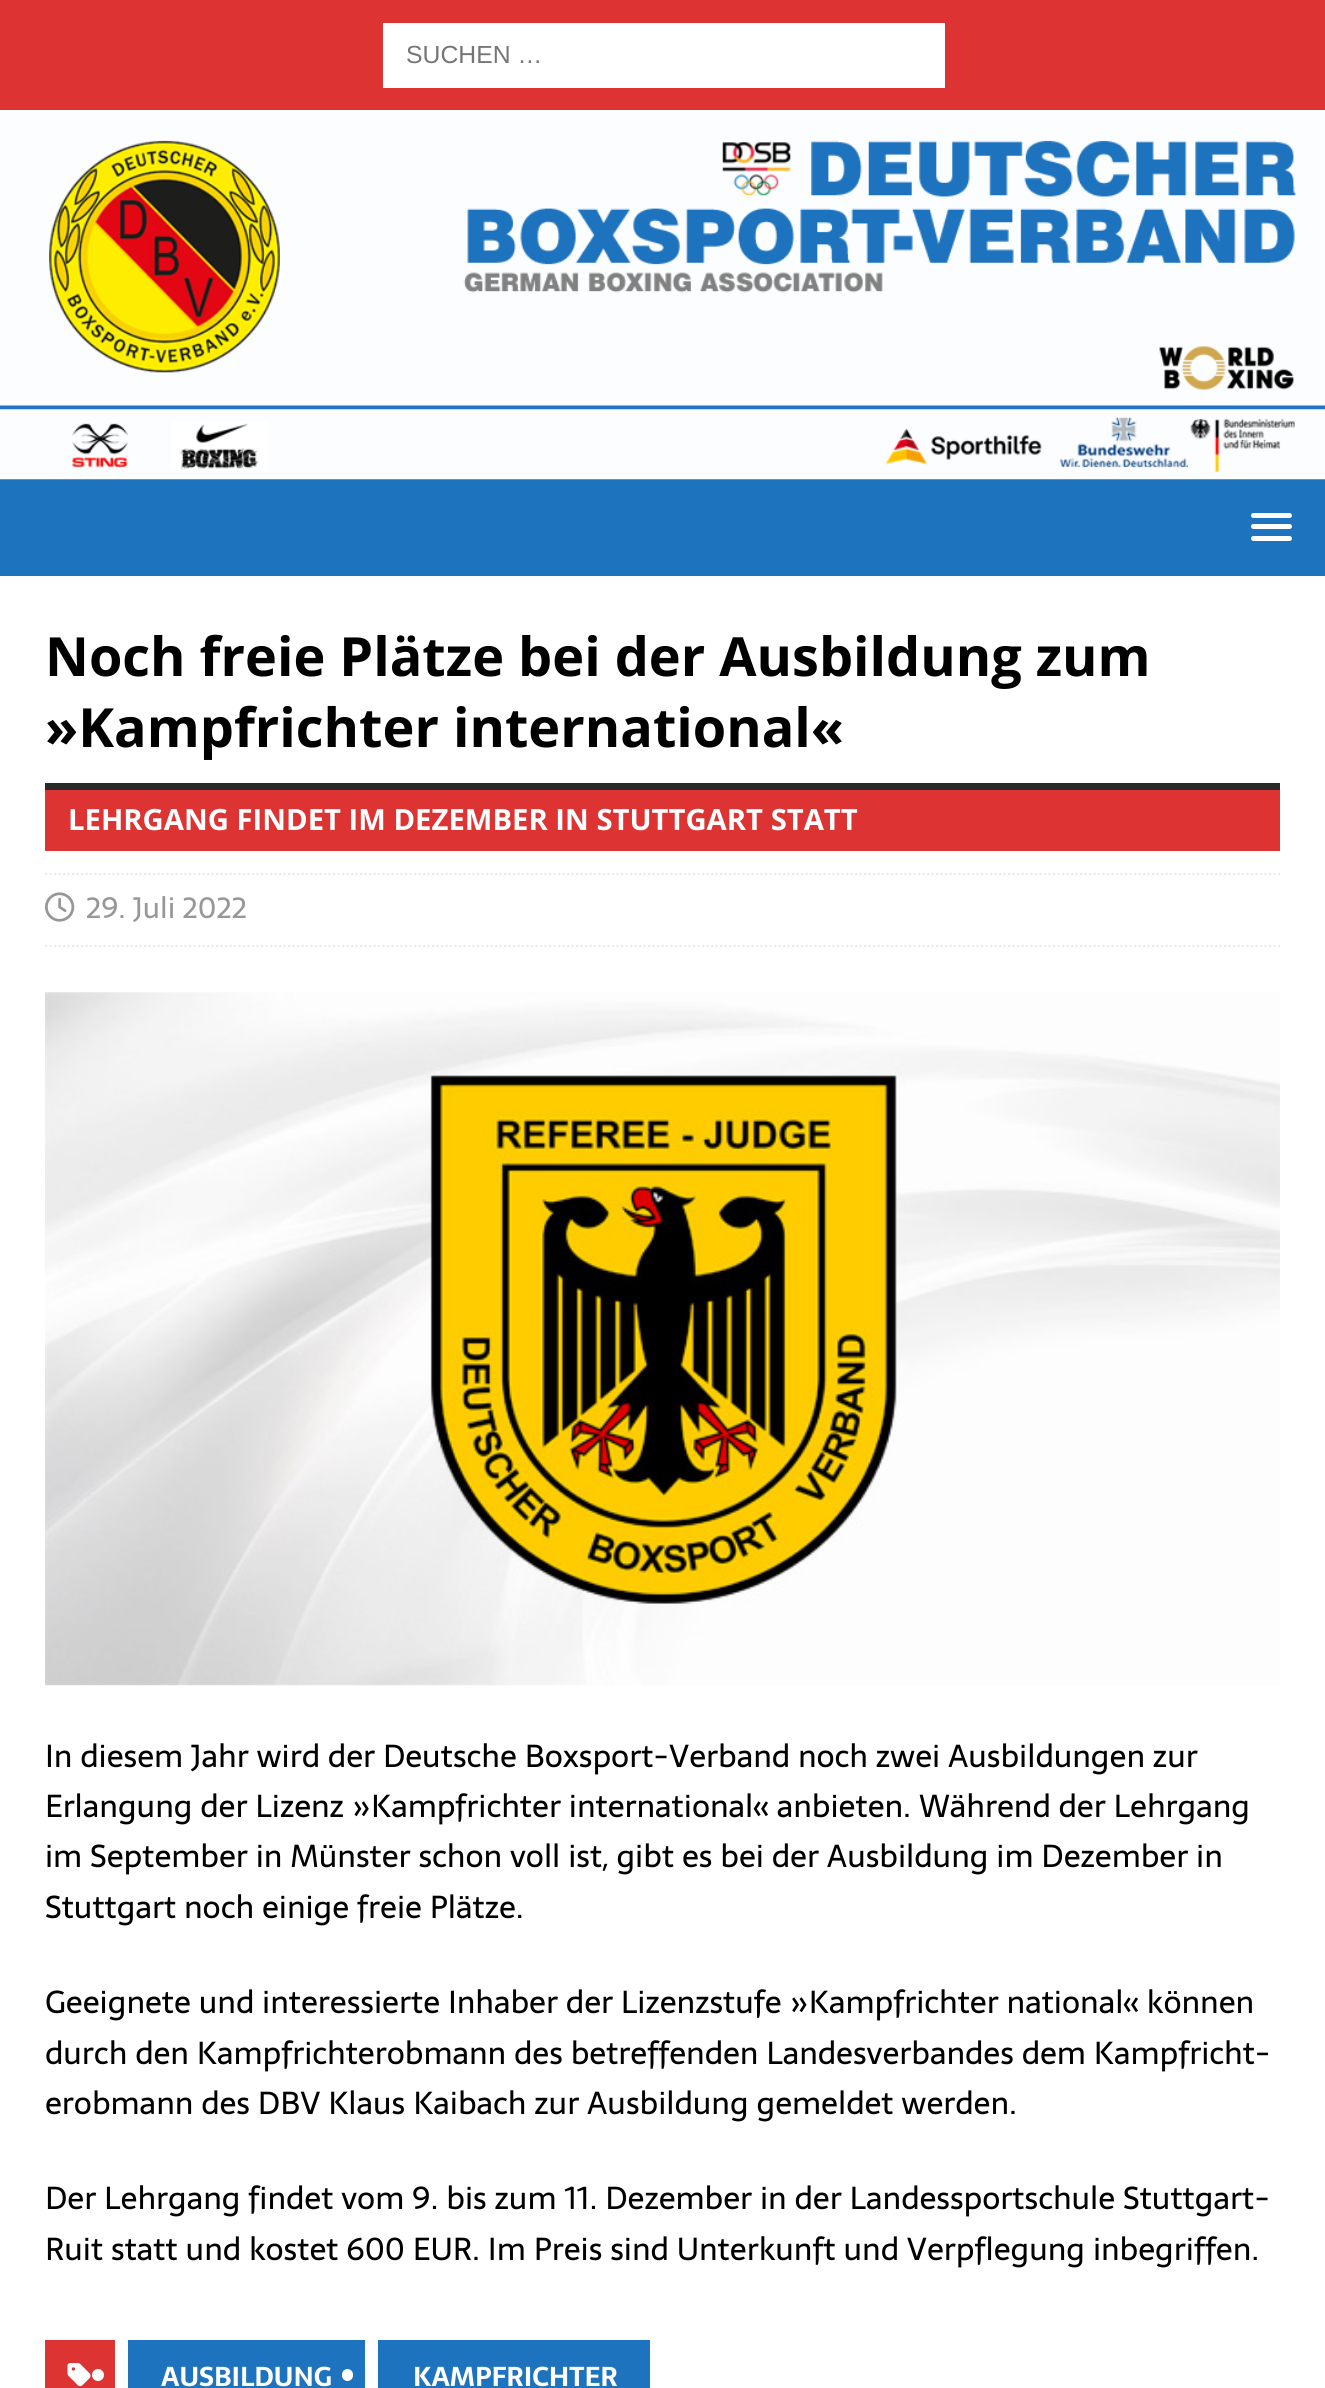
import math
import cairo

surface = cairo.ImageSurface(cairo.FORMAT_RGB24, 1325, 2388)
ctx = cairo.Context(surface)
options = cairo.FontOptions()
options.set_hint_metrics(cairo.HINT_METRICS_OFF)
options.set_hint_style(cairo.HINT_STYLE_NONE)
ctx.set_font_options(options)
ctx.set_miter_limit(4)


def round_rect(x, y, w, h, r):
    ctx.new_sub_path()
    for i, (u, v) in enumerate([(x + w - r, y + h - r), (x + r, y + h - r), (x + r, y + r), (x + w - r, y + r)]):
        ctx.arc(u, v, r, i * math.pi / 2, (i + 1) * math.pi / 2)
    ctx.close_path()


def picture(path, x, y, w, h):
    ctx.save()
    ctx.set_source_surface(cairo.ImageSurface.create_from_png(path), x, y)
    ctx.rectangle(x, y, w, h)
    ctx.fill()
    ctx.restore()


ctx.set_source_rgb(1, 1, 1)
ctx.paint()
ctx.set_source_rgb(0.867, 0.2, 0.2)
ctx.rectangle(0, 0, 1325, 110)
ctx.fill()
ctx.set_source_rgb(1, 1, 1)
ctx.rectangle(383, 23, 562, 65)
ctx.fill()
ctx.select_font_face("Liberation Sans")
ctx.set_font_size(24.75)
ctx.set_source_rgb(0.459, 0.459, 0.459)
ctx.move_to(406, 63)
ctx.show_text("SUCHEN …")
ctx.set_source_rgb(0.118, 0.451, 0.745)
ctx.rectangle(0, 479, 1325, 97)
ctx.fill()
picture("img1.png", 0, 110, 1325, 370)
ctx.set_source_rgb(1, 1, 1)
round_rect(1251, 513, 41, 5, 2.5)
ctx.fill()
round_rect(1251, 524, 41, 5, 2.5)
ctx.fill()
round_rect(1251, 536, 41, 5, 2.5)
ctx.fill()
ctx.select_font_face("Open Sans", cairo.FONT_SLANT_NORMAL, cairo.FONT_WEIGHT_BOLD)
ctx.set_font_size(54)
ctx.set_source_rgb(0, 0, 0)
ctx.move_to(45, 676)
ctx.show_text("Noch freie Plätze bei der Ausbildung zum")
ctx.move_to(45, 747)
ctx.show_text("»Kampfrichter international«")
ctx.set_source_rgb(0.165, 0.165, 0.165)
ctx.rectangle(45, 783, 1235, 7)
ctx.fill()
ctx.set_source_rgb(0.867, 0.2, 0.2)
ctx.rectangle(45, 790, 1235, 61)
ctx.fill()
ctx.set_font_size(29.25)
ctx.set_source_rgb(1, 1, 1)
ctx.move_to(68, 830)
ctx.show_text("LEHRGANG FINDET IM DEZEMBER IN STUTTGART STATT")
ctx.new_path()
ctx.move_to(45, 874)
ctx.line_to(1280, 874)
ctx.set_source_rgb(0.922, 0.922, 0.922)
ctx.set_line_width(2.2)
ctx.set_dash([2.25, 2.25])
ctx.stroke()
ctx.new_path()
ctx.move_to(45, 946)
ctx.line_to(1280, 946)
ctx.stroke()
picture("img2.png", 45, 892, 30, 30)
ctx.select_font_face("Sarala")
ctx.set_source_rgb(0.592, 0.592, 0.592)
ctx.move_to(86, 918)
ctx.show_text("29. Juli 2022")
picture("img3.png", 45, 992, 1235, 694)
ctx.set_font_size(31.5)
ctx.set_source_rgb(0, 0, 0)
ctx.move_to(45, 1767)
ctx.show_text("In diesem Jahr wird der Deutsche Boxsport-Verband noch zwei Ausbildungen zur")
ctx.move_to(45, 1817)
ctx.show_text("Erlangung der Lizenz »Kampfrichter international« anbieten. Während der Lehrgang")
ctx.move_to(45, 1867)
ctx.show_text("im September in Münster schon voll ist, gibt es bei der Ausbildung im Dezember in")
ctx.move_to(45, 1918)
ctx.show_text("Stuttgart noch einige freie Plätze.")
ctx.move_to(45, 2013)
ctx.show_text("Geeignete und interessierte Inhaber der Lizenzstufe »Kampfrichter national« können")
ctx.move_to(45, 2064)
ctx.show_text("durch den Kampfrichterobmann des betreffenden Landesverbandes dem Kampfricht-")
ctx.move_to(45, 2114)
ctx.show_text("erobmann des DBV Klaus Kaibach zur Ausbildung gemeldet werden.")
ctx.move_to(45, 2209)
ctx.show_text("Der Lehrgang findet vom 9. bis zum 11. Dezember in der Landessportschule Stuttgart-")
ctx.move_to(45, 2260)
ctx.show_text("Ruit statt und kostet 600 EUR. Im Preis sind Unterkunft und Verpflegung inbegriffen.")
ctx.set_source_rgb(0.867, 0.2, 0.2)
ctx.rectangle(45, 2340, 70, 48)
ctx.fill()
picture("img4.png", 67, 2363, 24, 24)
ctx.set_source_rgb(0.118, 0.451, 0.745)
ctx.rectangle(128, 2340, 237, 48)
ctx.fill()
ctx.set_source_rgb(1, 1, 1)
ctx.arc(98, 2375, 6, 0, 2 * math.pi)
ctx.fill()
ctx.select_font_face("Sarala", cairo.FONT_SLANT_NORMAL, cairo.FONT_WEIGHT_BOLD)
ctx.set_font_size(27)
ctx.move_to(161, 2386)
ctx.show_text("AUSBILDUNG")
ctx.set_source_rgb(0.118, 0.451, 0.745)
ctx.rectangle(378, 2340, 272, 48)
ctx.fill()
ctx.set_source_rgb(1, 1, 1)
round_rect(342, 2369, 11, 12, 5.5)
ctx.fill()
ctx.move_to(413, 2386)
ctx.show_text("KAMPFRICHTER")
surface.write_to_png("page.png")
